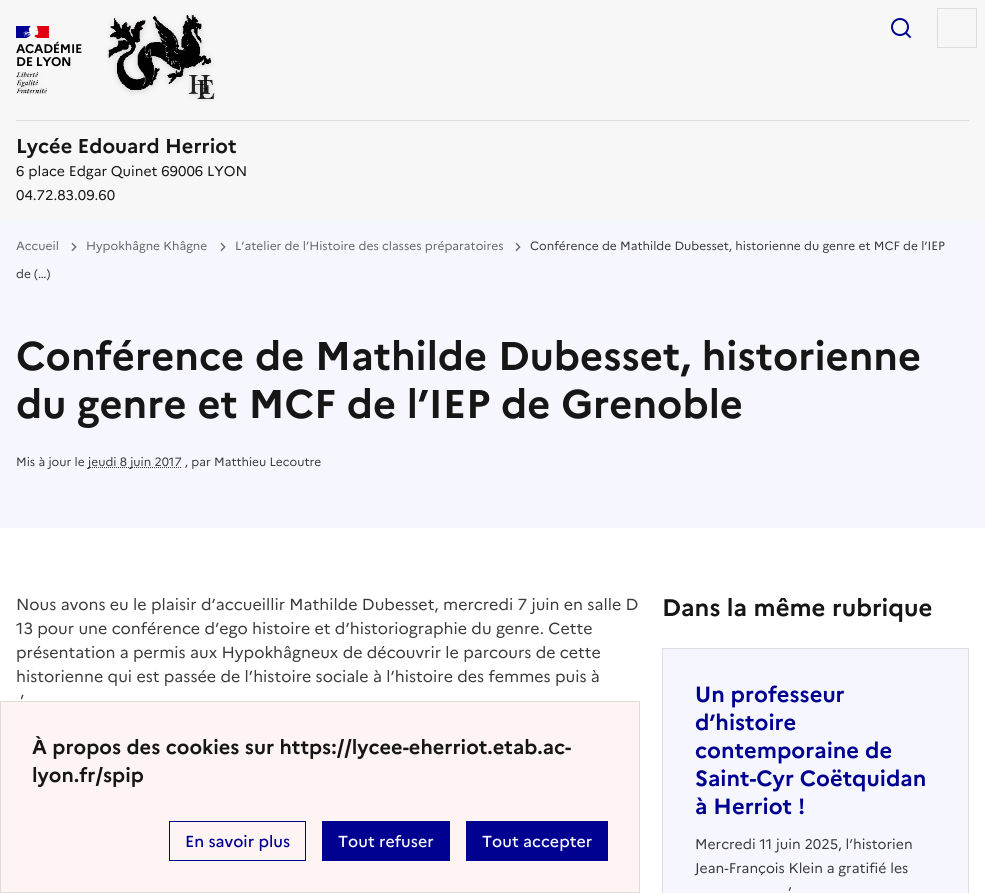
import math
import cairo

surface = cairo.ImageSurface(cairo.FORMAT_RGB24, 985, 893)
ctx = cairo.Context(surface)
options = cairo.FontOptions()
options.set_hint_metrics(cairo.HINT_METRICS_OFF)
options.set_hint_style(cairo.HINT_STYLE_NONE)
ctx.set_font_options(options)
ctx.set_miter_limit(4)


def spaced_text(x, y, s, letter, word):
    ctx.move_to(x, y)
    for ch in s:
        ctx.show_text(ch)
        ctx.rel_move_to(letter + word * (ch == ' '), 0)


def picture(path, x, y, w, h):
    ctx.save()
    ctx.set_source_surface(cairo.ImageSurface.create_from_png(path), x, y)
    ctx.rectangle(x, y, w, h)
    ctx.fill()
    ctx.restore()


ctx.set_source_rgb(1, 1, 1)
ctx.paint()
ctx.set_source_rgb(0.965, 0.965, 0.965)
ctx.rectangle(0, 0, 985, 220)
ctx.fill()
ctx.set_source_rgb(0, 0, 0.569)
ctx.rectangle(16, 26, 16, 12)
ctx.fill()
ctx.set_source_rgb(0.882, 0, 0.059)
ctx.rectangle(34, 26, 15, 12)
ctx.fill()
picture("img1.png", 23, 26, 16, 12)
ctx.select_font_face("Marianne", cairo.FONT_SLANT_NORMAL, cairo.FONT_WEIGHT_BOLD)
ctx.set_font_size(12.5)
ctx.set_source_rgb(0, 0, 0)
spaced_text(16, 53, "ACADÉMIE", -0.25, 0)
spaced_text(16, 66, "DE LYON", -0.25, 0)
picture("img2.png", 16, 72, 31, 22)
picture("img3.png", 106, 14, 109, 88)
picture("img4.png", 891, 18, 21, 21)
ctx.rectangle(937.5, 8.5, 39, 39)
ctx.set_source_rgb(0.867, 0.867, 0.867)
ctx.set_line_width(1)
ctx.stroke()
ctx.rectangle(16, 120, 953, 1)
ctx.fill()
ctx.set_font_size(20)
ctx.set_source_rgb(0.086, 0.086, 0.086)
ctx.move_to(16, 153)
ctx.show_text("Lycée Edouard Herriot")
ctx.select_font_face("Marianne")
ctx.set_font_size(14)
ctx.move_to(16, 176)
ctx.show_text("6 place Edgar Quinet 69006 LYON")
ctx.move_to(16, 200)
ctx.show_text("04.72.83.09.60")
ctx.set_source_rgb(0.961, 0.961, 0.996)
ctx.rectangle(0, 220, 985, 308)
ctx.fill()
ctx.set_font_size(12)
ctx.set_source_rgb(0.4, 0.4, 0.4)
ctx.move_to(16, 250)
ctx.show_text("Accueil")
picture("img5.png", 515, 242, 6, 10)
ctx.set_source_rgb(0.227, 0.227, 0.227)
ctx.move_to(530, 250)
ctx.show_text("Conférence de Mathilde Dubesset, historienne du genre et MCF de l’IEP")
ctx.move_to(16, 278)
ctx.show_text("de (…)")
picture("img5.png", 71, 242, 6, 10)
ctx.set_source_rgb(0.4, 0.4, 0.4)
ctx.move_to(86, 250)
ctx.show_text("Hypokhâgne Khâgne")
picture("img5.png", 220, 242, 6, 10)
ctx.move_to(235, 250)
ctx.show_text("L’atelier de l’Histoire des classes préparatoires")
ctx.select_font_face("Marianne", cairo.FONT_SLANT_NORMAL, cairo.FONT_WEIGHT_BOLD)
ctx.set_font_size(40)
ctx.set_source_rgb(0.086, 0.086, 0.086)
ctx.move_to(16, 370)
ctx.show_text("Conférence de Mathilde Dubesset, historienne")
ctx.move_to(16, 418)
ctx.show_text("du genre et MCF de l’IEP de Grenoble")
ctx.select_font_face("Marianne")
ctx.set_font_size(12)
ctx.set_source_rgb(0.227, 0.227, 0.227)
ctx.move_to(16, 466)
ctx.show_text("Mis à jour le")
ctx.new_path()
ctx.move_to(88, 467.5)
ctx.line_to(181.5, 467.5)
ctx.set_dash([1, 1])
ctx.stroke()
ctx.move_to(88, 466)
ctx.show_text("jeudi 8 juin 2017 , par Matthieu Lecoutre")
ctx.set_font_size(16)
ctx.move_to(16, 610)
ctx.show_text("Nous avons eu le plaisir d’accueillir Mathilde Dubesset, mercredi 7 juin en salle D")
ctx.move_to(16, 634)
ctx.show_text("13 pour une conférence d’ego histoire et d’historiographie du genre. Cette")
ctx.move_to(16, 658)
ctx.show_text("présentation a permis aux Hypokhâgneux de découvrir le parcours de cette")
ctx.move_to(16, 682)
ctx.show_text("historienne qui est passée de l’histoire sociale à l’histoire des femmes puis à")
ctx.move_to(20, 706)
ctx.show_text("’")
ctx.select_font_face("Marianne", cairo.FONT_SLANT_NORMAL, cairo.FONT_WEIGHT_BOLD)
ctx.set_font_size(24)
ctx.set_source_rgb(0.086, 0.086, 0.086)
ctx.move_to(662, 616)
ctx.show_text("Dans la même rubrique")
ctx.set_source_rgb(0.961, 0.961, 0.996)
ctx.rectangle(663, 649, 305, 244)
ctx.fill()
ctx.set_source_rgb(0.867, 0.867, 0.867)
ctx.rectangle(662, 648, 307, 1)
ctx.fill()
ctx.rectangle(968, 648, 1, 245)
ctx.fill()
ctx.rectangle(662, 648, 1, 245)
ctx.fill()
ctx.set_font_size(22)
ctx.set_source_rgb(0, 0, 0.569)
ctx.move_to(695, 702)
ctx.show_text("Un professeur")
ctx.move_to(695, 730)
ctx.show_text("d’histoire")
ctx.move_to(695, 758)
ctx.show_text("contemporaine de")
ctx.move_to(695, 786)
ctx.show_text("Saint-Cyr Coëtquidan")
ctx.move_to(695, 814)
ctx.show_text("à Herriot !")
ctx.select_font_face("Marianne")
ctx.set_font_size(14)
ctx.set_source_rgb(0.227, 0.227, 0.227)
ctx.move_to(695, 849)
ctx.show_text("Mercredi 11 juin 2025, l’historien")
ctx.move_to(695, 873)
ctx.show_text("Jean-François Klein a gratifié les")
ctx.move_to(788, 897)
ctx.show_text("’")
ctx.set_source_rgb(0.996, 0.957, 0.957)
ctx.rectangle(0.5, 701.5, 639, 191)
ctx.fill_preserve()
ctx.set_source_rgb(0.867, 0.867, 0.867)
ctx.set_dash([])
ctx.stroke()
ctx.select_font_face("Marianne", cairo.FONT_SLANT_NORMAL, cairo.FONT_WEIGHT_BOLD)
ctx.set_font_size(20)
ctx.set_source_rgb(0.086, 0.086, 0.086)
ctx.move_to(32, 754)
ctx.show_text("À propos des cookies sur https://lycee-eherriot.etab.ac-")
ctx.move_to(32, 782)
ctx.show_text("lyon.fr/spip")
ctx.rectangle(169.5, 821.5, 136, 39)
ctx.set_source_rgb(0, 0, 0.569)
ctx.stroke()
ctx.select_font_face("Marianne Medium")
ctx.set_font_size(16)
ctx.move_to(185, 847)
ctx.show_text("En savoir plus")
ctx.rectangle(322, 821, 128, 40)
ctx.fill()
ctx.set_source_rgb(0.961, 0.961, 0.996)
ctx.move_to(338, 847)
ctx.show_text("Tout refuser")
ctx.set_source_rgb(0, 0, 0.569)
ctx.rectangle(466, 821, 142, 40)
ctx.fill()
ctx.set_source_rgb(0.961, 0.961, 0.996)
ctx.move_to(482, 847)
ctx.show_text("Tout accepter")
surface.write_to_png("page.png")
